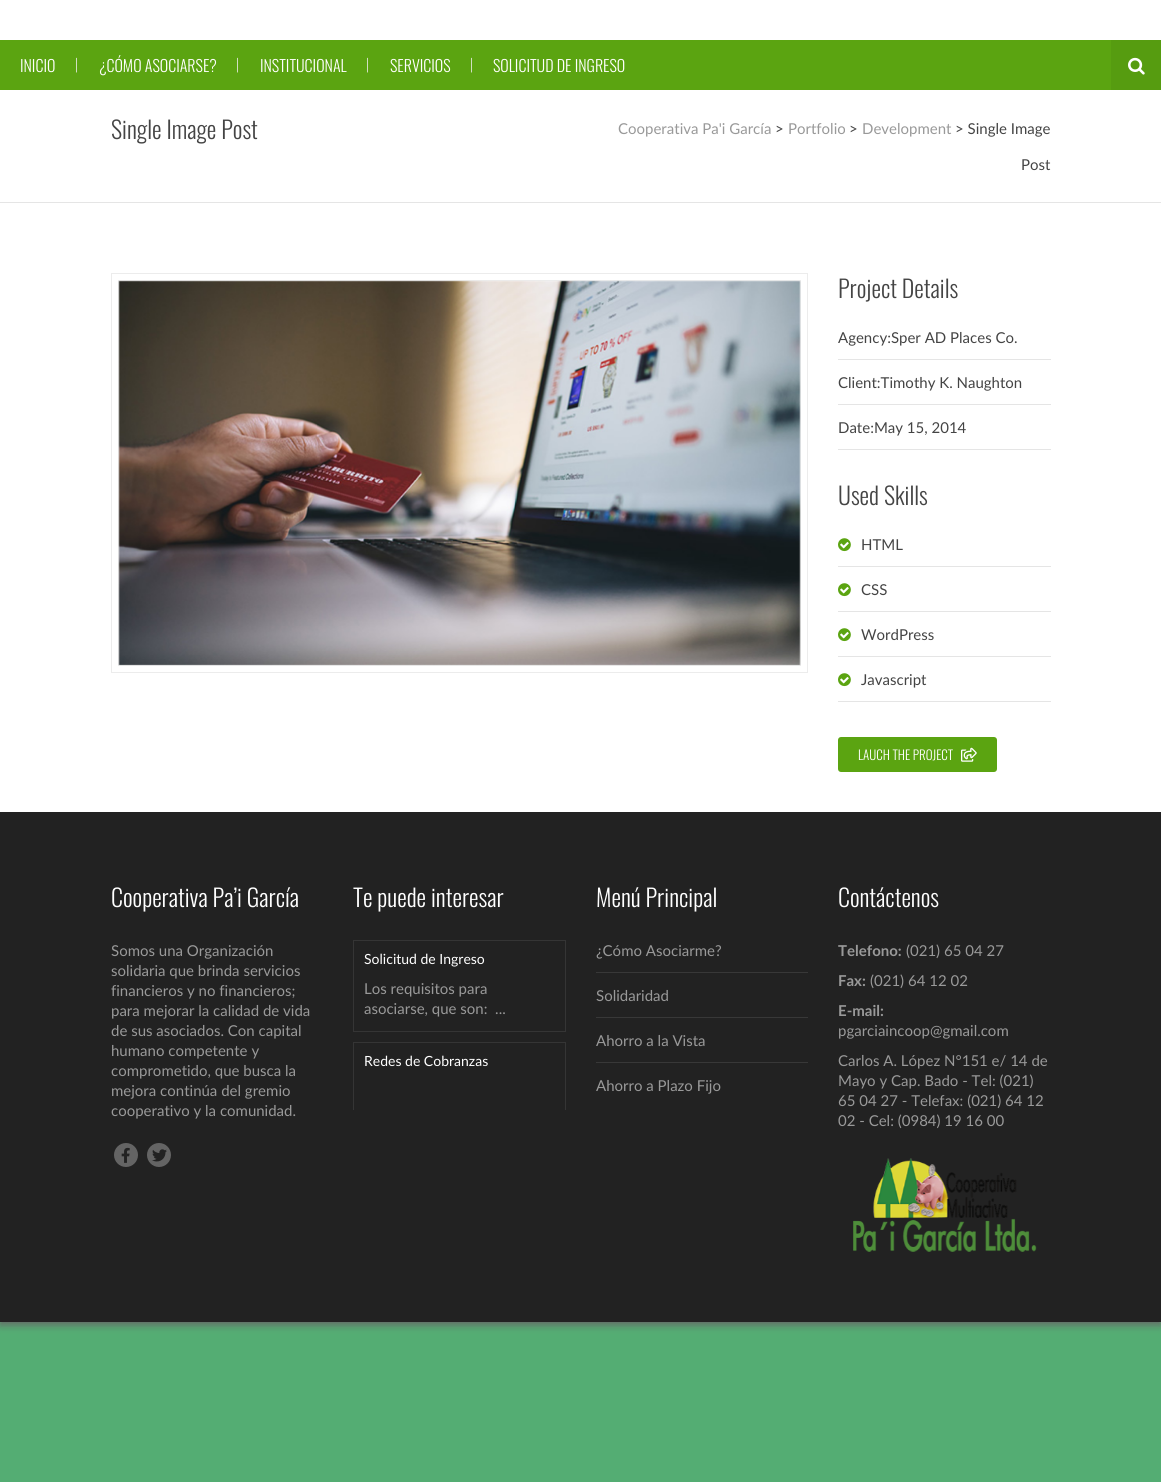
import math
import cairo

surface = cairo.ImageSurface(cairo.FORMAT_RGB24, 1161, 1482)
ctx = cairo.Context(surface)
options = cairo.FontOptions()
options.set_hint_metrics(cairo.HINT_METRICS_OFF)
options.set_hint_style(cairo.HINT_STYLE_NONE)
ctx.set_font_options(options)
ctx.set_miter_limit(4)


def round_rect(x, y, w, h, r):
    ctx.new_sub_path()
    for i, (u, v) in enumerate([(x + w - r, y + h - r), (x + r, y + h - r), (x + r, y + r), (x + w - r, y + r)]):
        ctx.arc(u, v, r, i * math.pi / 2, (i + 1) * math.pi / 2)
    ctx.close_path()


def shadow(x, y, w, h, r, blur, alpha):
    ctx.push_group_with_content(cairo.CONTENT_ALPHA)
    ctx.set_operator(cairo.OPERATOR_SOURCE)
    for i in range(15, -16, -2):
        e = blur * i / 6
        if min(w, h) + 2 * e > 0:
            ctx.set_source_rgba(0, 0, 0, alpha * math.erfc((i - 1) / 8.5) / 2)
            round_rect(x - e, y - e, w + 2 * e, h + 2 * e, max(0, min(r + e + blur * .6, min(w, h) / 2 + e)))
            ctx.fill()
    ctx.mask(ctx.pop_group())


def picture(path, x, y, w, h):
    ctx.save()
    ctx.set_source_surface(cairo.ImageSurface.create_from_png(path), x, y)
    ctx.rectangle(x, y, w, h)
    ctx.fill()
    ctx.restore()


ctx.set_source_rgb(0.329, 0.678, 0.451)
ctx.paint()
ctx.set_source_rgb(0.4, 0.4, 0.4)
shadow(0, 3, 1161, 1322, 0, 4, 1)
ctx.set_source_rgb(1, 1, 1)
ctx.rectangle(0, 0, 1161, 812)
ctx.fill()
ctx.set_source_rgb(0.357, 0.643, 0.067)
ctx.rectangle(0, 40, 1111, 50)
ctx.fill()
ctx.select_font_face("Oswald Light")
ctx.set_font_size(16)
ctx.set_source_rgb(1, 1, 1)
ctx.move_to(20, 72)
ctx.show_text("INICIO")
ctx.select_font_face("Liberation Serif")
ctx.set_source_rgb(0.933, 0.933, 0.933)
ctx.move_to(75, 69)
ctx.show_text("|")
ctx.select_font_face("Oswald Light")
ctx.set_source_rgb(1, 1, 1)
ctx.move_to(99, 72)
ctx.show_text("¿CÓMO ASOCIARSE?")
ctx.select_font_face("Liberation Serif")
ctx.set_source_rgb(0.933, 0.933, 0.933)
ctx.move_to(236, 69)
ctx.show_text("|")
ctx.select_font_face("Oswald Light")
ctx.set_source_rgb(1, 1, 1)
ctx.move_to(260, 72)
ctx.show_text("INSTITUCIONAL")
ctx.select_font_face("Liberation Serif")
ctx.set_source_rgb(0.933, 0.933, 0.933)
ctx.move_to(366, 69)
ctx.show_text("|")
ctx.select_font_face("Oswald Light")
ctx.set_source_rgb(1, 1, 1)
ctx.move_to(390, 72)
ctx.show_text("SERVICIOS")
ctx.select_font_face("Liberation Serif")
ctx.set_source_rgb(0.933, 0.933, 0.933)
ctx.move_to(470, 69)
ctx.show_text("|")
ctx.select_font_face("Oswald Light")
ctx.set_source_rgb(1, 1, 1)
ctx.move_to(493, 72)
ctx.show_text("SOLICITUD DE INGRESO")
ctx.set_source_rgb(0.337, 0.612, 0.063)
ctx.rectangle(1111, 40, 50, 50)
ctx.fill()
picture("img1.png", 1128, 57, 17, 18)
ctx.set_source_rgb(0.898, 0.898, 0.898)
ctx.rectangle(0, 202, 1161, 1)
ctx.fill()
ctx.set_font_size(24)
ctx.set_source_rgb(0.267, 0.267, 0.267)
ctx.move_to(111, 139)
ctx.show_text("Single Image Post")
ctx.select_font_face("Lato")
ctx.set_font_size(15)
ctx.set_source_rgb(0.6, 0.6, 0.6)
ctx.move_to(618, 134)
ctx.show_text("Cooperativa Pa'i García")
ctx.set_source_rgb(0.267, 0.267, 0.267)
ctx.move_to(775, 134)
ctx.show_text(">")
ctx.set_source_rgb(0.6, 0.6, 0.6)
ctx.move_to(788, 134)
ctx.show_text("Portfolio")
ctx.set_source_rgb(0.267, 0.267, 0.267)
ctx.move_to(849, 134)
ctx.show_text(">")
ctx.set_source_rgb(0.6, 0.6, 0.6)
ctx.move_to(862, 134)
ctx.show_text("Development")
ctx.set_source_rgb(0.267, 0.267, 0.267)
ctx.move_to(955, 134)
ctx.show_text("> Single Image")
ctx.move_to(1021, 170)
ctx.show_text("Post")
ctx.rectangle(111.5, 273.5, 696, 399)
ctx.set_source_rgb(0.922, 0.922, 0.922)
ctx.set_line_width(1)
ctx.stroke()
ctx.rectangle(118.5, 280.5, 682, 385)
ctx.stroke()
picture("img2.png", 118, 280, 683, 386)
ctx.select_font_face("Oswald Light")
ctx.set_font_size(24)
ctx.set_source_rgb(0.267, 0.267, 0.267)
ctx.move_to(838, 298)
ctx.show_text("Project Details")
ctx.set_source_rgb(0.898, 0.898, 0.898)
ctx.rectangle(838, 359, 213, 1)
ctx.fill()
ctx.select_font_face("Lato")
ctx.set_font_size(15)
ctx.set_source_rgb(0.267, 0.267, 0.267)
ctx.move_to(838, 343)
ctx.show_text("Agency:Sper AD Places Co.")
ctx.set_source_rgb(0.898, 0.898, 0.898)
ctx.rectangle(838, 404, 213, 1)
ctx.fill()
ctx.set_source_rgb(0.267, 0.267, 0.267)
ctx.move_to(838, 388)
ctx.show_text("Client:Timothy K. Naughton")
ctx.set_source_rgb(0.898, 0.898, 0.898)
ctx.rectangle(838, 449, 213, 1)
ctx.fill()
ctx.set_source_rgb(0.267, 0.267, 0.267)
ctx.move_to(838, 433)
ctx.show_text("Date:May 15, 2014")
ctx.select_font_face("Oswald Light")
ctx.set_font_size(24)
ctx.move_to(838, 505)
ctx.show_text("Used Skills")
ctx.set_source_rgb(0.898, 0.898, 0.898)
ctx.rectangle(838, 566, 213, 1)
ctx.fill()
picture("img3.png", 838, 538, 13, 14)
ctx.select_font_face("Lato")
ctx.set_font_size(15)
ctx.set_source_rgb(0.267, 0.267, 0.267)
ctx.move_to(861, 550)
ctx.show_text("HTML")
ctx.set_source_rgb(0.898, 0.898, 0.898)
ctx.rectangle(838, 611, 213, 1)
ctx.fill()
picture("img3.png", 838, 583, 13, 14)
ctx.set_source_rgb(0.267, 0.267, 0.267)
ctx.move_to(861, 595)
ctx.show_text("CSS")
ctx.set_source_rgb(0.898, 0.898, 0.898)
ctx.rectangle(838, 656, 213, 1)
ctx.fill()
picture("img3.png", 838, 628, 13, 14)
ctx.set_source_rgb(0.267, 0.267, 0.267)
ctx.move_to(861, 640)
ctx.show_text("WordPress")
ctx.set_source_rgb(0.898, 0.898, 0.898)
ctx.rectangle(838, 701, 213, 1)
ctx.fill()
picture("img3.png", 838, 673, 13, 14)
ctx.set_source_rgb(0.267, 0.267, 0.267)
ctx.move_to(861, 685)
ctx.show_text("Javascript")
ctx.set_source_rgb(0.357, 0.643, 0.067)
round_rect(838, 737, 159, 35, 3)
ctx.fill()
ctx.select_font_face("Oswald Light")
ctx.set_font_size(13)
ctx.set_source_rgb(1, 1, 1)
ctx.move_to(858, 760)
ctx.show_text("LAUCH THE PROJECT")
picture("img4.png", 961, 747, 16, 15)
ctx.set_source_rgb(0.133, 0.133, 0.133)
ctx.rectangle(0, 812, 1161, 510)
ctx.fill()
ctx.set_font_size(24)
ctx.set_source_rgb(1, 1, 1)
ctx.move_to(111, 907)
ctx.show_text("Cooperativa Pa’i García")
ctx.select_font_face("Lato")
ctx.set_font_size(15)
ctx.set_source_rgb(0.6, 0.6, 0.6)
ctx.move_to(111, 956)
ctx.show_text("Somos una Organización")
ctx.move_to(111, 976)
ctx.show_text("solidaria que brinda servicios")
ctx.move_to(111, 996)
ctx.show_text("financieros y no financieros;")
ctx.move_to(111, 1016)
ctx.show_text("para mejorar la calidad de vida")
ctx.move_to(111, 1036)
ctx.show_text("de sus asociados. Con capital")
ctx.move_to(111, 1056)
ctx.show_text("humano competente y")
ctx.move_to(111, 1076)
ctx.show_text("comprometido, que busca la")
ctx.move_to(111, 1096)
ctx.show_text("mejora continúa del gremio")
ctx.move_to(111, 1116)
ctx.show_text("cooperativo y la comunidad.")
ctx.set_source_rgb(0.392, 0.392, 0.392)
ctx.new_path()
ctx.arc(126, 1155, 12, 0, 2 * math.pi)
ctx.fill()
picture("img5.png", 121, 1147, 9, 16)
ctx.arc(159, 1155, 12, 0, 2 * math.pi)
ctx.fill()
picture("img6.png", 152, 1149, 15, 13)
ctx.select_font_face("Oswald Light")
ctx.set_font_size(24)
ctx.set_source_rgb(1, 1, 1)
ctx.move_to(353, 907)
ctx.show_text("Te puede interesar")
ctx.rectangle(353.5, 940.5, 212, 91)
ctx.set_source_rgb(0.208, 0.208, 0.208)
ctx.stroke()
ctx.select_font_face("Lato")
ctx.set_font_size(14)
ctx.set_source_rgb(1, 1, 1)
ctx.move_to(364, 964)
ctx.show_text("Solicitud de Ingreso")
ctx.set_font_size(15)
ctx.set_source_rgb(0.6, 0.6, 0.6)
ctx.move_to(364, 994)
ctx.show_text("Los requisitos para")
ctx.move_to(364, 1014)
ctx.show_text("asociarse, que son:  ...")
ctx.save()
ctx.rectangle(353, 940, 213, 170)
ctx.clip()
ctx.rectangle(353.5, 1042.5, 212, 91)
ctx.set_source_rgb(0.208, 0.208, 0.208)
ctx.stroke()
ctx.restore()
ctx.set_font_size(14)
ctx.set_source_rgb(1, 1, 1)
ctx.move_to(364, 1066)
ctx.show_text("Redes de Cobranzas")
ctx.select_font_face("Oswald Light")
ctx.set_font_size(24)
ctx.move_to(596, 907)
ctx.show_text("Menú Principal")
ctx.set_source_rgb(0.22, 0.22, 0.22)
ctx.rectangle(596, 972, 212, 1)
ctx.fill()
ctx.select_font_face("Lato")
ctx.set_font_size(15)
ctx.set_source_rgb(0.6, 0.6, 0.6)
ctx.move_to(596, 956)
ctx.show_text("¿Cómo Asociarme?")
ctx.set_source_rgb(0.22, 0.22, 0.22)
ctx.rectangle(596, 1017, 212, 1)
ctx.fill()
ctx.set_source_rgb(0.6, 0.6, 0.6)
ctx.move_to(596, 1001)
ctx.show_text("Solidaridad")
ctx.set_source_rgb(0.22, 0.22, 0.22)
ctx.rectangle(596, 1062, 212, 1)
ctx.fill()
ctx.set_source_rgb(0.6, 0.6, 0.6)
ctx.move_to(596, 1046)
ctx.show_text("Ahorro a la Vista")
ctx.move_to(596, 1091)
ctx.show_text("Ahorro a Plazo Fijo")
ctx.select_font_face("Oswald Light")
ctx.set_font_size(24)
ctx.set_source_rgb(1, 1, 1)
ctx.move_to(838, 907)
ctx.show_text("Contáctenos")
ctx.select_font_face("Lato", cairo.FONT_SLANT_NORMAL, cairo.FONT_WEIGHT_BOLD)
ctx.set_font_size(15)
ctx.set_source_rgb(0.6, 0.6, 0.6)
ctx.move_to(838, 956)
ctx.show_text("Telefono:")
ctx.select_font_face("Lato")
ctx.move_to(906, 956)
ctx.show_text("(021) 65 04 27")
ctx.select_font_face("Lato", cairo.FONT_SLANT_NORMAL, cairo.FONT_WEIGHT_BOLD)
ctx.move_to(838, 986)
ctx.show_text("Fax:")
ctx.select_font_face("Lato")
ctx.move_to(870, 986)
ctx.show_text("(021) 64 12 02")
ctx.select_font_face("Lato", cairo.FONT_SLANT_NORMAL, cairo.FONT_WEIGHT_BOLD)
ctx.move_to(838, 1016)
ctx.show_text("E-mail:")
ctx.select_font_face("Lato")
ctx.move_to(838, 1036)
ctx.show_text("pgarciaincoop@gmail.com")
ctx.move_to(838, 1066)
ctx.show_text("Carlos A. López N°151 e/ 14 de")
ctx.move_to(838, 1086)
ctx.show_text("Mayo y Cap. Bado - Tel: (021)")
ctx.move_to(838, 1106)
ctx.show_text("65 04 27 - Telefax: (021) 64 12")
ctx.move_to(838, 1126)
ctx.show_text("02 - Cel: (0984) 19 16 00")
picture("img7.png", 853, 1158, 184, 94)
surface.write_to_png("page.png")
